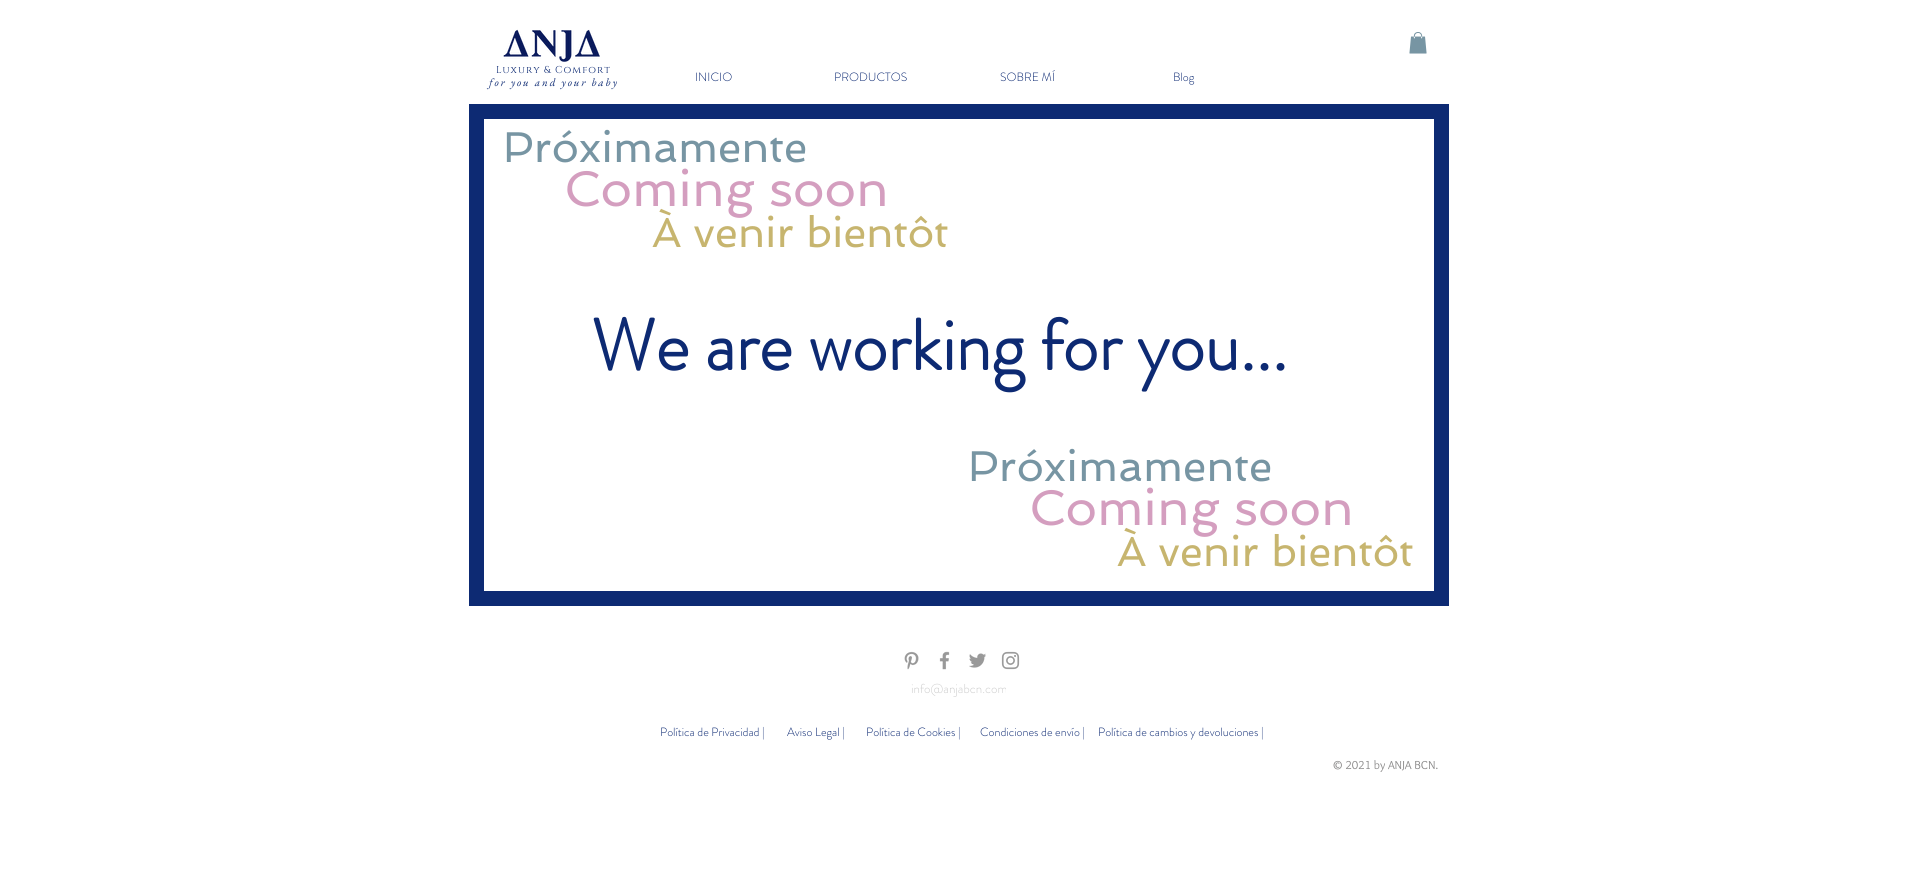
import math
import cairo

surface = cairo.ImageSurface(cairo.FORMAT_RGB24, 1918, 891)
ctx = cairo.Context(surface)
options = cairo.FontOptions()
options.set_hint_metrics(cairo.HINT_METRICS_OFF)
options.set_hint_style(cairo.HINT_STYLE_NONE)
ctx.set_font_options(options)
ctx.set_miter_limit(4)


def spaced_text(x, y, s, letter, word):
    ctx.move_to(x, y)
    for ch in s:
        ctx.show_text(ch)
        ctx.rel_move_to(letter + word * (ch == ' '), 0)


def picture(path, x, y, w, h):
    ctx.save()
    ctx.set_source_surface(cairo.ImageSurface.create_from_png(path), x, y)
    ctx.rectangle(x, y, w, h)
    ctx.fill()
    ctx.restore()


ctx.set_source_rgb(1, 1, 1)
ctx.paint()
picture("img1.png", 1409, 32, 18, 22)
picture("img2.png", 503, 29, 97, 33)
ctx.select_font_face("Cinzel")
ctx.set_font_size(10)
ctx.set_source_rgb(0.051, 0.165, 0.451)
spaced_text(496, 73, "Luxury & Comfort", 1, 0)
ctx.select_font_face("EB Garamond", cairo.FONT_SLANT_ITALIC)
ctx.set_font_size(11)
spaced_text(489, 86, "for you and your baby", 1.9, 0)
ctx.select_font_face("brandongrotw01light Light")
ctx.set_font_size(12)
ctx.move_to(695, 81)
ctx.show_text("INICIO")
ctx.move_to(834, 81)
ctx.show_text("PRODUCTOS")
ctx.move_to(1000, 81)
ctx.show_text("SOBRE MÍ")
ctx.move_to(1173, 81)
ctx.show_text("Blog")
ctx.rectangle(476.5, 111.5, 965, 487)
ctx.set_line_width(15)
ctx.stroke()
ctx.select_font_face("Spinnaker")
ctx.set_font_size(43)
ctx.set_source_rgb(0.467, 0.584, 0.639)
ctx.move_to(503, 162)
ctx.show_text("Próximamente")
ctx.set_font_size(50)
ctx.set_source_rgb(0.831, 0.62, 0.749)
ctx.move_to(564, 206)
ctx.show_text("Coming soon")
ctx.set_font_size(42)
ctx.set_source_rgb(0.78, 0.71, 0.435)
ctx.move_to(652, 247)
ctx.show_text("À venir bientôt")
ctx.select_font_face("brandongrotw01light", cairo.FONT_SLANT_NORMAL, cairo.FONT_WEIGHT_BOLD)
ctx.set_font_size(72)
ctx.set_source_rgb(0.051, 0.165, 0.451)
ctx.move_to(591, 370)
ctx.show_text("We are working for you...")
ctx.select_font_face("Spinnaker")
ctx.set_font_size(43)
ctx.set_source_rgb(0.467, 0.584, 0.639)
ctx.move_to(968, 481)
ctx.show_text("Próximamente")
ctx.set_font_size(50)
ctx.set_source_rgb(0.831, 0.62, 0.749)
ctx.move_to(1029, 525)
ctx.show_text("Coming soon")
ctx.set_font_size(42)
ctx.set_source_rgb(0.78, 0.71, 0.435)
ctx.move_to(1117, 566)
ctx.show_text("À venir bientôt")
picture("img3.png", 904, 651, 15, 19)
picture("img4.png", 939, 651, 11, 19)
picture("img5.png", 969, 653, 17, 15)
picture("img6.png", 1001, 651, 19, 19)
ctx.select_font_face("brandongrotw01light Light")
ctx.set_font_size(13)
ctx.set_source_rgb(0.8, 0.8, 0.8)
ctx.move_to(911, 693)
ctx.show_text("info@anjabcn.com")
ctx.set_font_size(12)
ctx.set_source_rgb(0.051, 0.165, 0.451)
ctx.move_to(660, 736)
ctx.show_text("Política de Privacidad |")
ctx.move_to(787, 736)
ctx.show_text("Aviso Legal |")
ctx.move_to(866, 736)
ctx.show_text("Política de Cookies |")
ctx.move_to(980, 736)
ctx.show_text("Condiciones de envío |")
ctx.move_to(1098, 736)
ctx.show_text("Política de cambios y devoluciones |")
ctx.select_font_face("Overlock")
ctx.set_source_rgb(0.545, 0.541, 0.541)
ctx.move_to(1332, 769)
ctx.show_text("© 2021 by ANJA BCN.")
surface.write_to_png("page.png")
